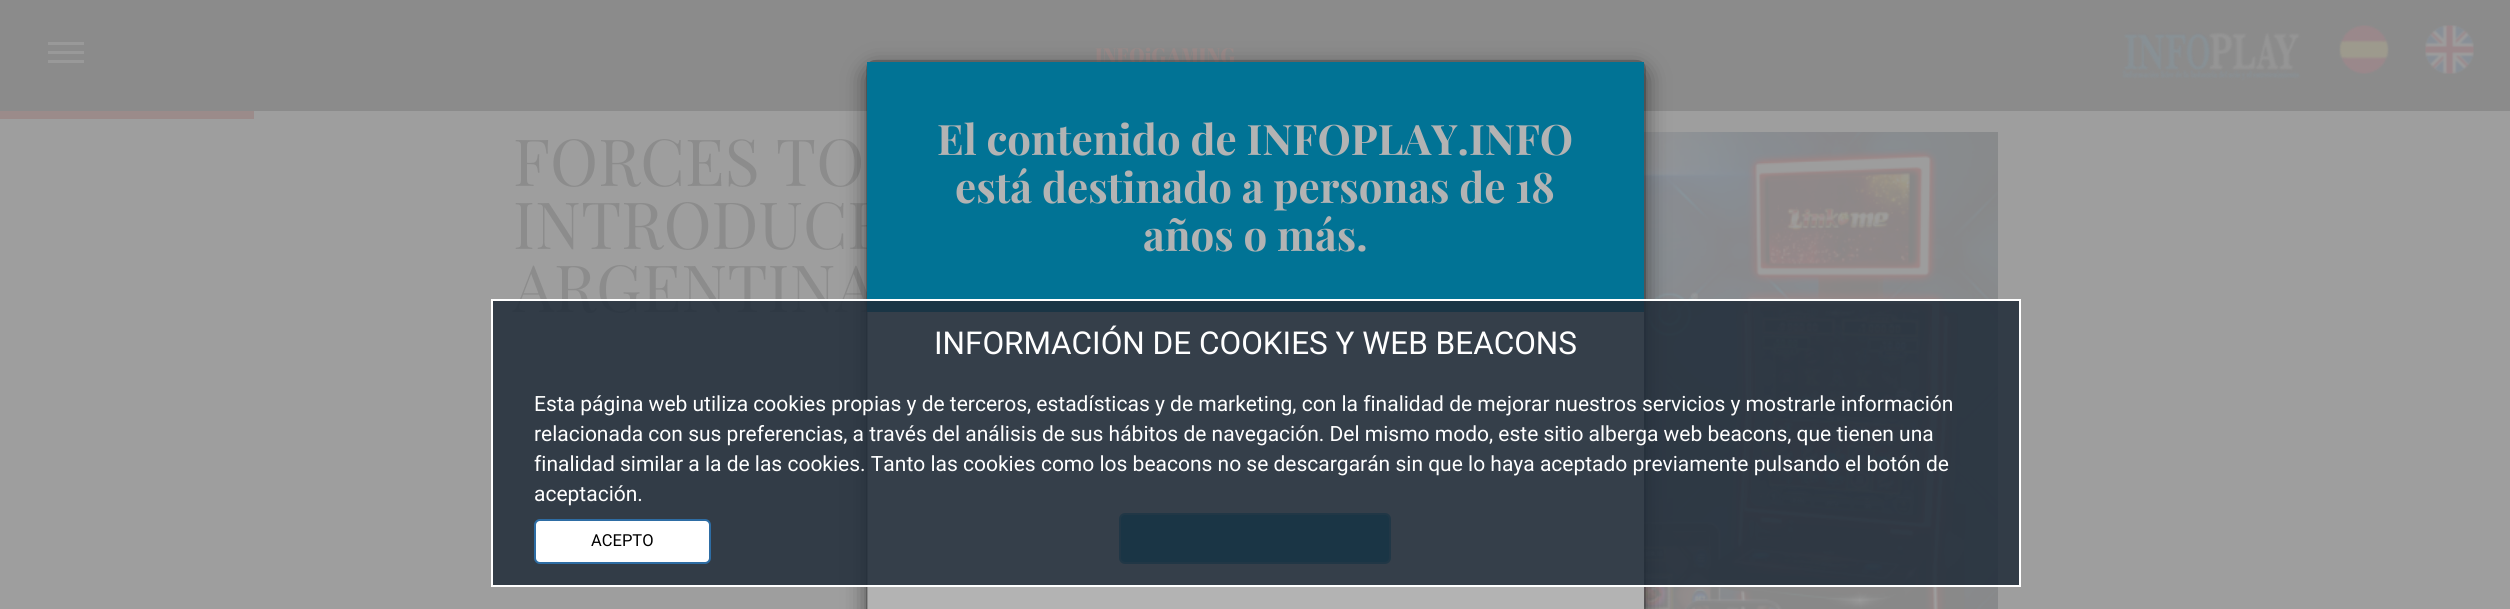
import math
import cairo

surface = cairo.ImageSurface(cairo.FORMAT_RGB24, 2510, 609)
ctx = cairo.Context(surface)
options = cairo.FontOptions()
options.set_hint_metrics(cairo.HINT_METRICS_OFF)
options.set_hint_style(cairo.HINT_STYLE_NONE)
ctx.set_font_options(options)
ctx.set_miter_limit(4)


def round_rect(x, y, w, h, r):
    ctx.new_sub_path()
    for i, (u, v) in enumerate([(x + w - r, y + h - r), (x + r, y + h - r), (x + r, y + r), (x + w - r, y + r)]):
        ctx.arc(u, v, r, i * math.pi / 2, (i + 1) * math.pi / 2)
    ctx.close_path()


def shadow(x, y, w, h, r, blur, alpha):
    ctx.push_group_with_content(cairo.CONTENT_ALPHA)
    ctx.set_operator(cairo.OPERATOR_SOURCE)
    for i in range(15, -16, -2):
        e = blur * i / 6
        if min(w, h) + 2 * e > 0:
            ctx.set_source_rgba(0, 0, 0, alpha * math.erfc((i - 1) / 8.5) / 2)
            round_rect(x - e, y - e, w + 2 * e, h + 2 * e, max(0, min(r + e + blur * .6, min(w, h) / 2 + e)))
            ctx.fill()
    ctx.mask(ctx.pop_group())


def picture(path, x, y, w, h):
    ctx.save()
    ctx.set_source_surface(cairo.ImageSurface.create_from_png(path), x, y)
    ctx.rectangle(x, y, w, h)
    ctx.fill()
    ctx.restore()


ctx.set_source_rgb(0.62, 0.62, 0.62)
ctx.paint()
ctx.set_source_rgb(0.545, 0.545, 0.545)
ctx.rectangle(0, 0, 2510, 111)
ctx.fill()
ctx.set_source_rgb(0.6, 0.6, 0.6)
ctx.rectangle(48, 51, 36, 3)
ctx.fill()
ctx.rectangle(48, 42, 36, 3)
ctx.fill()
ctx.rectangle(48, 60, 36, 3)
ctx.fill()
ctx.select_font_face("Abril Fatface")
ctx.set_font_size(21)
ctx.set_source_rgb(0.608, 0.545, 0.541)
ctx.move_to(1095, 63)
ctx.show_text("INFOiGAMING")
picture("img1.png", 2122, 32, 179, 49)
picture("img2.png", 2339, 25, 50, 49)
picture("img3.png", 2425, 25, 49, 49)
ctx.rectangle(0, 111, 254, 8)
ctx.fill()
ctx.select_font_face("Playfair Display")
ctx.set_font_size(65)
ctx.set_source_rgb(0.549, 0.549, 0.549)
ctx.move_to(513, 186)
ctx.show_text("FORCES TO")
ctx.move_to(513, 249)
ctx.show_text("INTRODUCE")
ctx.move_to(513, 312)
ctx.show_text("ARGENTINA")
picture("img4.png", 1644, 132, 354, 477)
ctx.set_source_rgb(0, 0, 0)
shadow(866, 68, 780, 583, 9, 11, 0.5)
ctx.set_source_rgb(0.702, 0.702, 0.702)
ctx.rectangle(867, 312, 777, 297)
ctx.fill()
round_rect(867, 61, 778, 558, 8)
ctx.set_source_rgba(0, 0, 0, 0.2)
ctx.stroke()
ctx.set_source_rgb(0.004, 0.451, 0.584)
ctx.rectangle(867, 62, 777, 250)
ctx.fill()
ctx.select_font_face("Playfair Display", cairo.FONT_SLANT_NORMAL, cairo.FONT_WEIGHT_BOLD)
ctx.set_font_size(42)
ctx.set_source_rgb(0.702, 0.702, 0.702)
ctx.move_to(937, 155)
ctx.show_text("El contenido de INFOPLAY.INFO")
ctx.move_to(955, 203)
ctx.show_text("está destinado a personas de 18")
ctx.move_to(1143, 251)
ctx.show_text("años o más.")
ctx.set_source_rgb(0.004, 0.451, 0.584)
round_rect(1120, 514, 270, 49, 5)
ctx.fill_preserve()
ctx.set_source_rgb(0.192, 0.506, 0.6)
ctx.stroke()
ctx.set_source_rgba(0.122, 0.169, 0.216, 0.85)
ctx.rectangle(492, 300, 1528, 286)
ctx.fill_preserve()
ctx.set_source_rgb(1, 1, 1)
ctx.stroke()
ctx.select_font_face("Roboto")
ctx.set_font_size(31.5)
ctx.move_to(934, 354)
ctx.show_text("INFORMACIÓN DE COOKIES Y WEB BEACONS")
ctx.set_font_size(21)
ctx.move_to(534, 411)
ctx.show_text("Esta página web utiliza cookies propias y de terceros, estadísticas y de marketing, con la finalidad de mejorar nuestros servicios y mostrarle información")
ctx.move_to(534, 441)
ctx.show_text("relacionada con sus preferencias, a través del análisis de sus hábitos de navegación. Del mismo modo, este sitio alberga web beacons, que tienen una")
ctx.move_to(534, 471)
ctx.show_text("finalidad similar a la de las cookies. Tanto las cookies como los beacons no se descargarán sin que lo haya aceptado previamente pulsando el botón de")
ctx.move_to(534, 501)
ctx.show_text("aceptación.")
round_rect(535, 520, 175, 43, 5)
ctx.fill_preserve()
ctx.set_source_rgb(0.18, 0.427, 0.643)
ctx.stroke()
ctx.set_font_size(16.5)
ctx.set_source_rgb(0, 0, 0)
ctx.move_to(591, 546)
ctx.show_text("ACEPTO")
surface.write_to_png("page.png")
